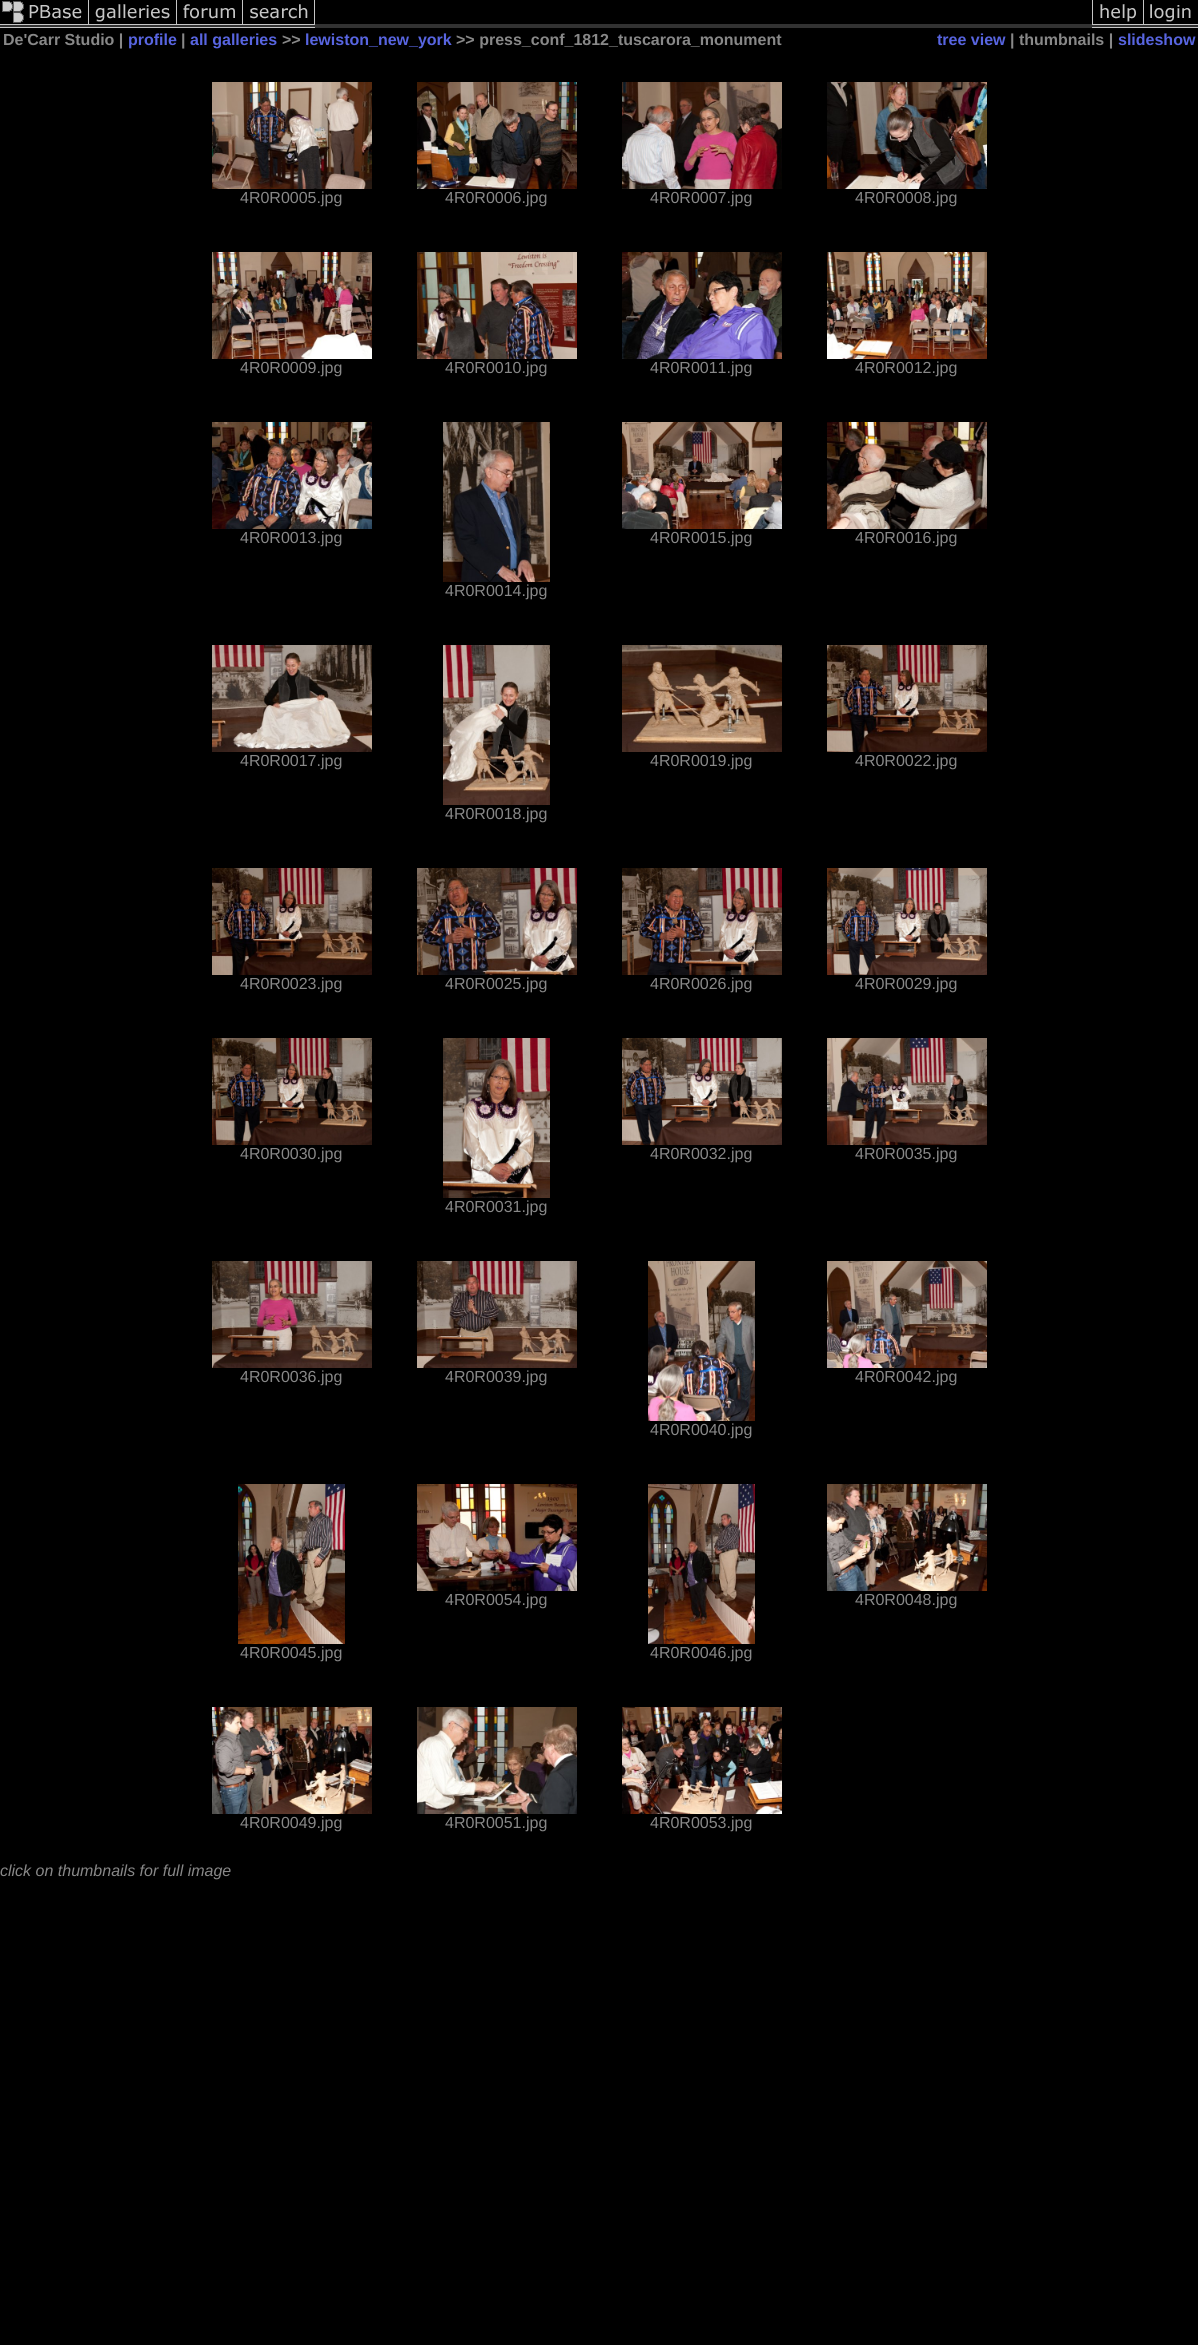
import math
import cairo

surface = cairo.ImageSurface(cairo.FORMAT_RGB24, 1198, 2345)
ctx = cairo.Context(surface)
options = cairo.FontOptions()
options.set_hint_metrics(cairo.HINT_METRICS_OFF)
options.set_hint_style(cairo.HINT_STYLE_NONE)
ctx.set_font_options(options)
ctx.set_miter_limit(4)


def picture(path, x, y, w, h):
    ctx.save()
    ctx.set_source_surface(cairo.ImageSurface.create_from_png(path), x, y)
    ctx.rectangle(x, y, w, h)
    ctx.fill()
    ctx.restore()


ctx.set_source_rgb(0, 0, 0)
ctx.paint()
picture("img1.png", 0, 0, 89, 28)
picture("img2.png", 89, 0, 88, 28)
picture("img3.png", 177, 0, 66, 28)
picture("img4.png", 243, 0, 72, 28)
ctx.set_source_rgb(0.196, 0.196, 0.196)
ctx.rectangle(315, 24, 777, 4)
ctx.fill()
picture("img5.png", 1092, 0, 52, 28)
picture("img6.png", 1144, 4, 54, 24)
ctx.select_font_face("Liberation Sans", cairo.FONT_SLANT_NORMAL, cairo.FONT_WEIGHT_BOLD)
ctx.set_font_size(16)
ctx.set_source_rgb(0.533, 0.533, 0.533)
ctx.move_to(3, 45)
ctx.show_text("De'Carr Studio |")
ctx.set_source_rgb(0.345, 0.396, 0.882)
ctx.move_to(128, 45)
ctx.show_text("profile")
ctx.set_source_rgb(0.533, 0.533, 0.533)
ctx.move_to(181, 45)
ctx.show_text("|")
ctx.set_source_rgb(0.345, 0.396, 0.882)
ctx.move_to(190, 45)
ctx.show_text("all galleries")
ctx.set_source_rgb(0.533, 0.533, 0.533)
ctx.move_to(282, 45)
ctx.show_text(">>")
ctx.set_source_rgb(0.345, 0.396, 0.882)
ctx.move_to(305, 45)
ctx.show_text("lewiston_new_york")
ctx.set_source_rgb(0.533, 0.533, 0.533)
ctx.move_to(456, 45)
ctx.show_text(">> press_conf_1812_tuscarora_monument")
ctx.set_source_rgb(0.345, 0.396, 0.882)
ctx.move_to(937, 45)
ctx.show_text("tree view")
ctx.set_source_rgb(0.533, 0.533, 0.533)
ctx.move_to(1010, 45)
ctx.show_text("| thumbnails |")
ctx.set_source_rgb(0.345, 0.396, 0.882)
ctx.move_to(1118, 45)
ctx.show_text("slideshow")
picture("img7.png", 212, 82, 160, 107)
ctx.select_font_face("Liberation Sans")
ctx.set_source_rgb(0.533, 0.533, 0.533)
ctx.move_to(240, 203)
ctx.show_text("4R0R0005.jpg")
picture("img8.png", 417, 82, 160, 107)
ctx.move_to(445, 203)
ctx.show_text("4R0R0006.jpg")
picture("img9.png", 622, 82, 160, 107)
ctx.move_to(650, 203)
ctx.show_text("4R0R0007.jpg")
picture("img10.png", 827, 82, 160, 107)
ctx.move_to(855, 203)
ctx.show_text("4R0R0008.jpg")
picture("img11.png", 212, 252, 160, 107)
ctx.move_to(240, 373)
ctx.show_text("4R0R0009.jpg")
picture("img12.png", 417, 252, 160, 107)
ctx.move_to(445, 373)
ctx.show_text("4R0R0010.jpg")
picture("img13.png", 622, 252, 160, 107)
ctx.move_to(650, 373)
ctx.show_text("4R0R0011.jpg")
picture("img14.png", 827, 252, 160, 107)
ctx.move_to(855, 373)
ctx.show_text("4R0R0012.jpg")
picture("img15.png", 212, 422, 160, 107)
ctx.move_to(240, 543)
ctx.show_text("4R0R0013.jpg")
picture("img16.png", 622, 422, 160, 107)
ctx.move_to(650, 543)
ctx.show_text("4R0R0015.jpg")
picture("img17.png", 827, 422, 160, 107)
ctx.move_to(855, 543)
ctx.show_text("4R0R0016.jpg")
picture("img18.png", 443, 422, 107, 160)
ctx.move_to(445, 596)
ctx.show_text("4R0R0014.jpg")
picture("img19.png", 212, 645, 160, 107)
ctx.move_to(240, 766)
ctx.show_text("4R0R0017.jpg")
picture("img20.png", 622, 645, 160, 107)
ctx.move_to(650, 766)
ctx.show_text("4R0R0019.jpg")
picture("img21.png", 827, 645, 160, 107)
ctx.move_to(855, 766)
ctx.show_text("4R0R0022.jpg")
picture("img22.png", 443, 645, 107, 160)
ctx.move_to(445, 819)
ctx.show_text("4R0R0018.jpg")
picture("img23.png", 212, 868, 160, 107)
ctx.move_to(240, 989)
ctx.show_text("4R0R0023.jpg")
picture("img24.png", 417, 868, 160, 107)
ctx.move_to(445, 989)
ctx.show_text("4R0R0025.jpg")
picture("img25.png", 622, 868, 160, 107)
ctx.move_to(650, 989)
ctx.show_text("4R0R0026.jpg")
picture("img26.png", 827, 868, 160, 107)
ctx.move_to(855, 989)
ctx.show_text("4R0R0029.jpg")
picture("img27.png", 212, 1038, 160, 107)
ctx.move_to(240, 1159)
ctx.show_text("4R0R0030.jpg")
picture("img28.png", 622, 1038, 160, 107)
ctx.move_to(650, 1159)
ctx.show_text("4R0R0032.jpg")
picture("img29.png", 827, 1038, 160, 107)
ctx.move_to(855, 1159)
ctx.show_text("4R0R0035.jpg")
picture("img30.png", 443, 1038, 107, 160)
ctx.move_to(445, 1212)
ctx.show_text("4R0R0031.jpg")
picture("img31.png", 212, 1261, 160, 107)
ctx.move_to(240, 1382)
ctx.show_text("4R0R0036.jpg")
picture("img32.png", 417, 1261, 160, 107)
ctx.move_to(445, 1382)
ctx.show_text("4R0R0039.jpg")
picture("img33.png", 827, 1261, 160, 107)
ctx.move_to(855, 1382)
ctx.show_text("4R0R0042.jpg")
picture("img34.png", 648, 1261, 107, 160)
ctx.move_to(650, 1435)
ctx.show_text("4R0R0040.jpg")
picture("img35.png", 417, 1484, 160, 107)
ctx.move_to(445, 1605)
ctx.show_text("4R0R0054.jpg")
picture("img36.png", 827, 1484, 160, 107)
ctx.move_to(855, 1605)
ctx.show_text("4R0R0048.jpg")
picture("img37.png", 238, 1484, 107, 160)
ctx.move_to(240, 1658)
ctx.show_text("4R0R0045.jpg")
picture("img38.png", 648, 1484, 107, 160)
ctx.move_to(650, 1658)
ctx.show_text("4R0R0046.jpg")
picture("img39.png", 212, 1707, 160, 107)
ctx.move_to(240, 1828)
ctx.show_text("4R0R0049.jpg")
picture("img40.png", 417, 1707, 160, 107)
ctx.move_to(445, 1828)
ctx.show_text("4R0R0051.jpg")
picture("img41.png", 622, 1707, 160, 107)
ctx.move_to(650, 1828)
ctx.show_text("4R0R0053.jpg")
ctx.select_font_face("Liberation Sans", cairo.FONT_SLANT_ITALIC)
ctx.move_to(0, 1876)
ctx.show_text("click on thumbnails for full image")
surface.write_to_png("page.png")
